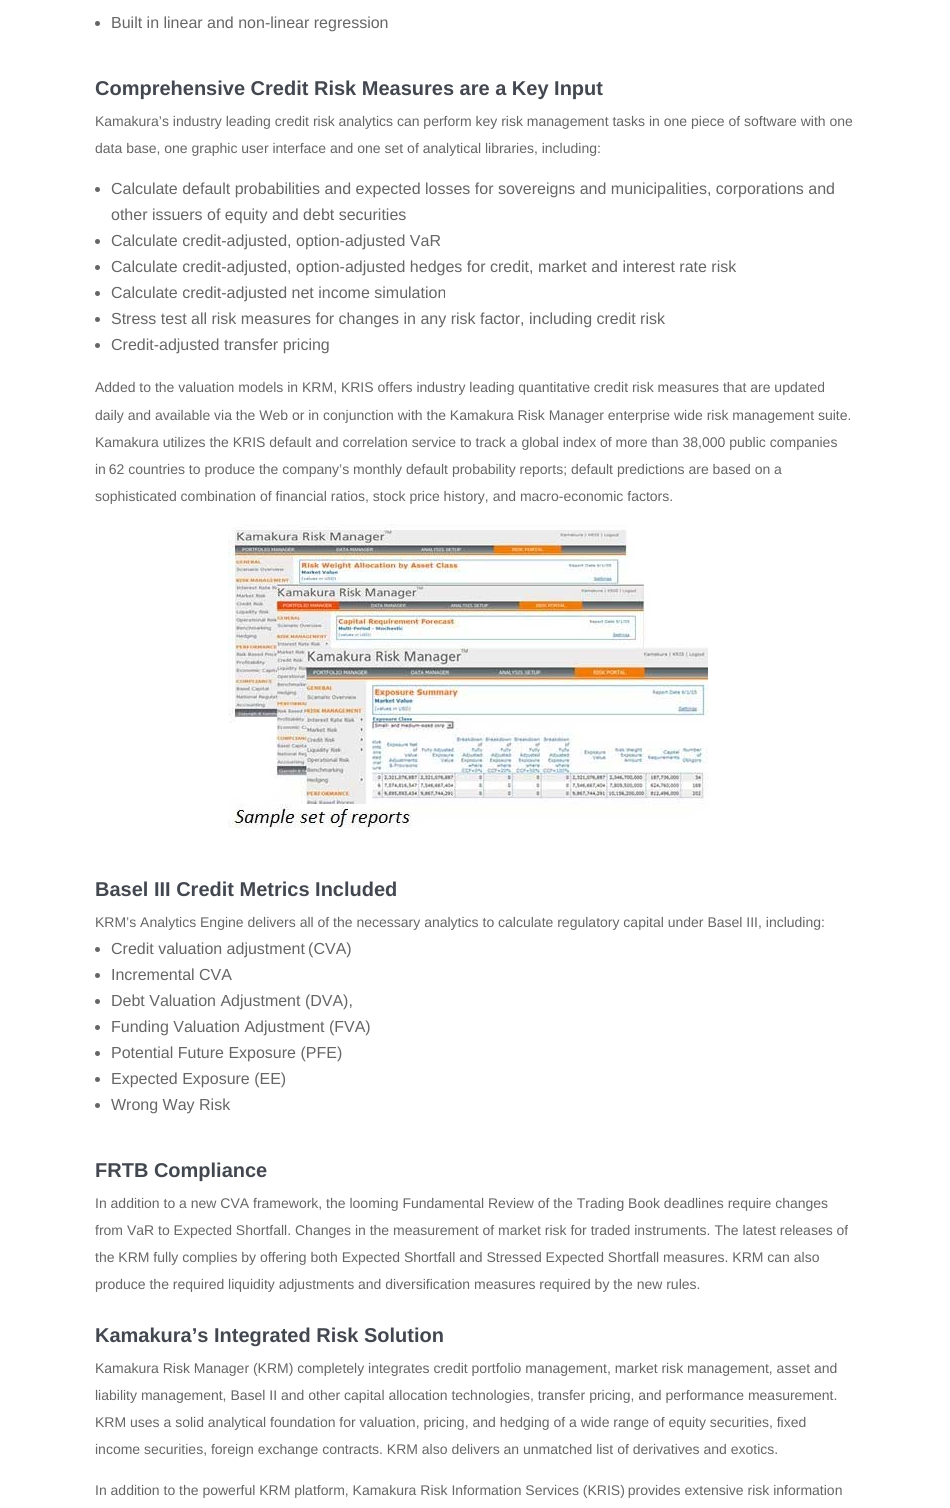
import math
import cairo

surface = cairo.ImageSurface(cairo.FORMAT_RGB24, 950, 1508)
ctx = cairo.Context(surface)
options = cairo.FontOptions()
options.set_hint_metrics(cairo.HINT_METRICS_OFF)
options.set_hint_style(cairo.HINT_STYLE_NONE)
ctx.set_font_options(options)
ctx.set_miter_limit(4)


def picture(path, x, y, w, h):
    ctx.save()
    ctx.set_source_surface(cairo.ImageSurface.create_from_png(path), x, y)
    ctx.rectangle(x, y, w, h)
    ctx.fill()
    ctx.restore()


ctx.set_source_rgb(1, 1, 1)
ctx.paint()
ctx.set_source_rgb(0.4, 0.4, 0.4)
ctx.arc(97.5, 23.5, 2.5, 0, 2 * math.pi)
ctx.fill()
ctx.select_font_face("Liberation Sans")
ctx.set_font_size(16)
ctx.move_to(111, 28)
ctx.show_text("Built in linear and non-linear regression")
ctx.select_font_face("Liberation Sans", cairo.FONT_SLANT_NORMAL, cairo.FONT_WEIGHT_BOLD)
ctx.set_font_size(20)
ctx.set_source_rgb(0.263, 0.282, 0.314)
ctx.move_to(95, 95)
ctx.show_text("Comprehensive Credit Risk Measures are a Key Input")
ctx.select_font_face("Liberation Sans")
ctx.set_font_size(14)
ctx.set_source_rgb(0.4, 0.4, 0.4)
ctx.move_to(95, 126)
ctx.show_text("Kamakura’s industry leading credit risk analytics can perform key risk management tasks in one piece of software with one")
ctx.move_to(95, 153)
ctx.show_text("data base, one graphic user interface and one set of analytical libraries, including:")
ctx.new_path()
ctx.arc(97.5, 189.5, 2.5, 0, 2 * math.pi)
ctx.fill()
ctx.set_font_size(16)
ctx.move_to(111, 194)
ctx.show_text("Calculate default probabilities and expected losses for sovereigns and municipalities, corporations and")
ctx.move_to(111, 220)
ctx.show_text("other issuers of equity and debt securities")
ctx.new_path()
ctx.arc(97.5, 241.5, 2.5, 0, 2 * math.pi)
ctx.fill()
ctx.move_to(111, 246)
ctx.show_text("Calculate credit-adjusted, option-adjusted VaR")
ctx.new_path()
ctx.arc(97.5, 267.5, 2.5, 0, 2 * math.pi)
ctx.fill()
ctx.move_to(111, 272)
ctx.show_text("Calculate credit-adjusted, option-adjusted hedges for credit, market and interest rate risk")
ctx.new_path()
ctx.arc(97.5, 293.5, 2.5, 0, 2 * math.pi)
ctx.fill()
ctx.move_to(111, 298)
ctx.show_text("Calculate credit-adjusted net income simulation")
ctx.new_path()
ctx.arc(97.5, 319.5, 2.5, 0, 2 * math.pi)
ctx.fill()
ctx.move_to(111, 324)
ctx.show_text("Stress test all risk measures for changes in any risk factor, including credit risk")
ctx.new_path()
ctx.arc(97.5, 345.5, 2.5, 0, 2 * math.pi)
ctx.fill()
ctx.move_to(111, 350)
ctx.show_text("Credit-adjusted transfer pricing")
ctx.set_font_size(14)
ctx.move_to(95, 392)
ctx.show_text("Added to the valuation models in KRM, KRIS offers industry leading quantitative credit risk measures that are updated")
ctx.move_to(95, 420)
ctx.show_text("daily and available via the Web or in conjunction with the Kamakura Risk Manager enterprise wide risk management suite.")
ctx.move_to(95, 447)
ctx.show_text("Kamakura utilizes the KRIS default and correlation service to track a global index of more than 38,000 public companies")
ctx.move_to(95, 474)
ctx.show_text("in 62 countries to produce the company’s monthly default probability reports; default predictions are based on a")
ctx.move_to(95, 501)
ctx.show_text("sophisticated combination of financial ratios, stock price history, and macro-economic factors.")
picture("img1.png", 228, 524, 481, 304)
ctx.select_font_face("Liberation Sans", cairo.FONT_SLANT_NORMAL, cairo.FONT_WEIGHT_BOLD)
ctx.set_font_size(20)
ctx.set_source_rgb(0.263, 0.282, 0.314)
ctx.move_to(95, 896)
ctx.show_text("Basel III Credit Metrics Included")
ctx.select_font_face("Liberation Sans")
ctx.set_font_size(14)
ctx.set_source_rgb(0.4, 0.4, 0.4)
ctx.move_to(95, 927)
ctx.show_text("KRM’s Analytics Engine delivers all of the necessary analytics to calculate regulatory capital under Basel III, including:")
ctx.new_path()
ctx.arc(97.5, 949.5, 2.5, 0, 2 * math.pi)
ctx.fill()
ctx.set_font_size(16)
ctx.move_to(111, 954)
ctx.show_text("Credit valuation adjustment (CVA)")
ctx.new_path()
ctx.arc(97.5, 975.5, 2.5, 0, 2 * math.pi)
ctx.fill()
ctx.move_to(111, 980)
ctx.show_text("Incremental CVA")
ctx.new_path()
ctx.arc(97.5, 1001.5, 2.5, 0, 2 * math.pi)
ctx.fill()
ctx.move_to(111, 1006)
ctx.show_text("Debt Valuation Adjustment (DVA),")
ctx.new_path()
ctx.arc(97.5, 1027.5, 2.5, 0, 2 * math.pi)
ctx.fill()
ctx.move_to(111, 1032)
ctx.show_text("Funding Valuation Adjustment (FVA)")
ctx.new_path()
ctx.arc(97.5, 1053.5, 2.5, 0, 2 * math.pi)
ctx.fill()
ctx.move_to(111, 1058)
ctx.show_text("Potential Future Exposure (PFE)")
ctx.new_path()
ctx.arc(97.5, 1079.5, 2.5, 0, 2 * math.pi)
ctx.fill()
ctx.move_to(111, 1084)
ctx.show_text("Expected Exposure (EE)")
ctx.new_path()
ctx.arc(97.5, 1105.5, 2.5, 0, 2 * math.pi)
ctx.fill()
ctx.move_to(111, 1110)
ctx.show_text("Wrong Way Risk")
ctx.select_font_face("Liberation Sans", cairo.FONT_SLANT_NORMAL, cairo.FONT_WEIGHT_BOLD)
ctx.set_font_size(20)
ctx.set_source_rgb(0.263, 0.282, 0.314)
ctx.move_to(95, 1177)
ctx.show_text("FRTB Compliance")
ctx.select_font_face("Liberation Sans")
ctx.set_font_size(14)
ctx.set_source_rgb(0.4, 0.4, 0.4)
ctx.move_to(95, 1208)
ctx.show_text("In addition to a new CVA framework, the looming Fundamental Review of the Trading Book deadlines require changes")
ctx.move_to(95, 1235)
ctx.show_text("from VaR to Expected Shortfall. Changes in the measurement of market risk for traded instruments. The latest releases of")
ctx.move_to(95, 1262)
ctx.show_text("the KRM fully complies by offering both Expected Shortfall and Stressed Expected Shortfall measures. KRM can also")
ctx.move_to(95, 1289)
ctx.show_text("produce the required liquidity adjustments and diversification measures required by the new rules.")
ctx.select_font_face("Liberation Sans", cairo.FONT_SLANT_NORMAL, cairo.FONT_WEIGHT_BOLD)
ctx.set_font_size(20)
ctx.set_source_rgb(0.263, 0.282, 0.314)
ctx.move_to(95, 1342)
ctx.show_text("Kamakura’s Integrated Risk Solution")
ctx.select_font_face("Liberation Sans")
ctx.set_font_size(14)
ctx.set_source_rgb(0.4, 0.4, 0.4)
ctx.move_to(95, 1373)
ctx.show_text("Kamakura Risk Manager (KRM) completely integrates credit portfolio management, market risk management, asset and")
ctx.move_to(95, 1400)
ctx.show_text("liability management, Basel II and other capital allocation technologies, transfer pricing, and performance measurement.")
ctx.move_to(95, 1427)
ctx.show_text("KRM uses a solid analytical foundation for valuation, pricing, and hedging of a wide range of equity securities, fixed")
ctx.move_to(95, 1454)
ctx.show_text("income securities, foreign exchange contracts. KRM also delivers an unmatched list of derivatives and exotics.")
ctx.move_to(95, 1495)
ctx.show_text("In addition to the powerful KRM platform, Kamakura Risk Information Services (KRIS) provides extensive risk information")
surface.write_to_png("page.png")
